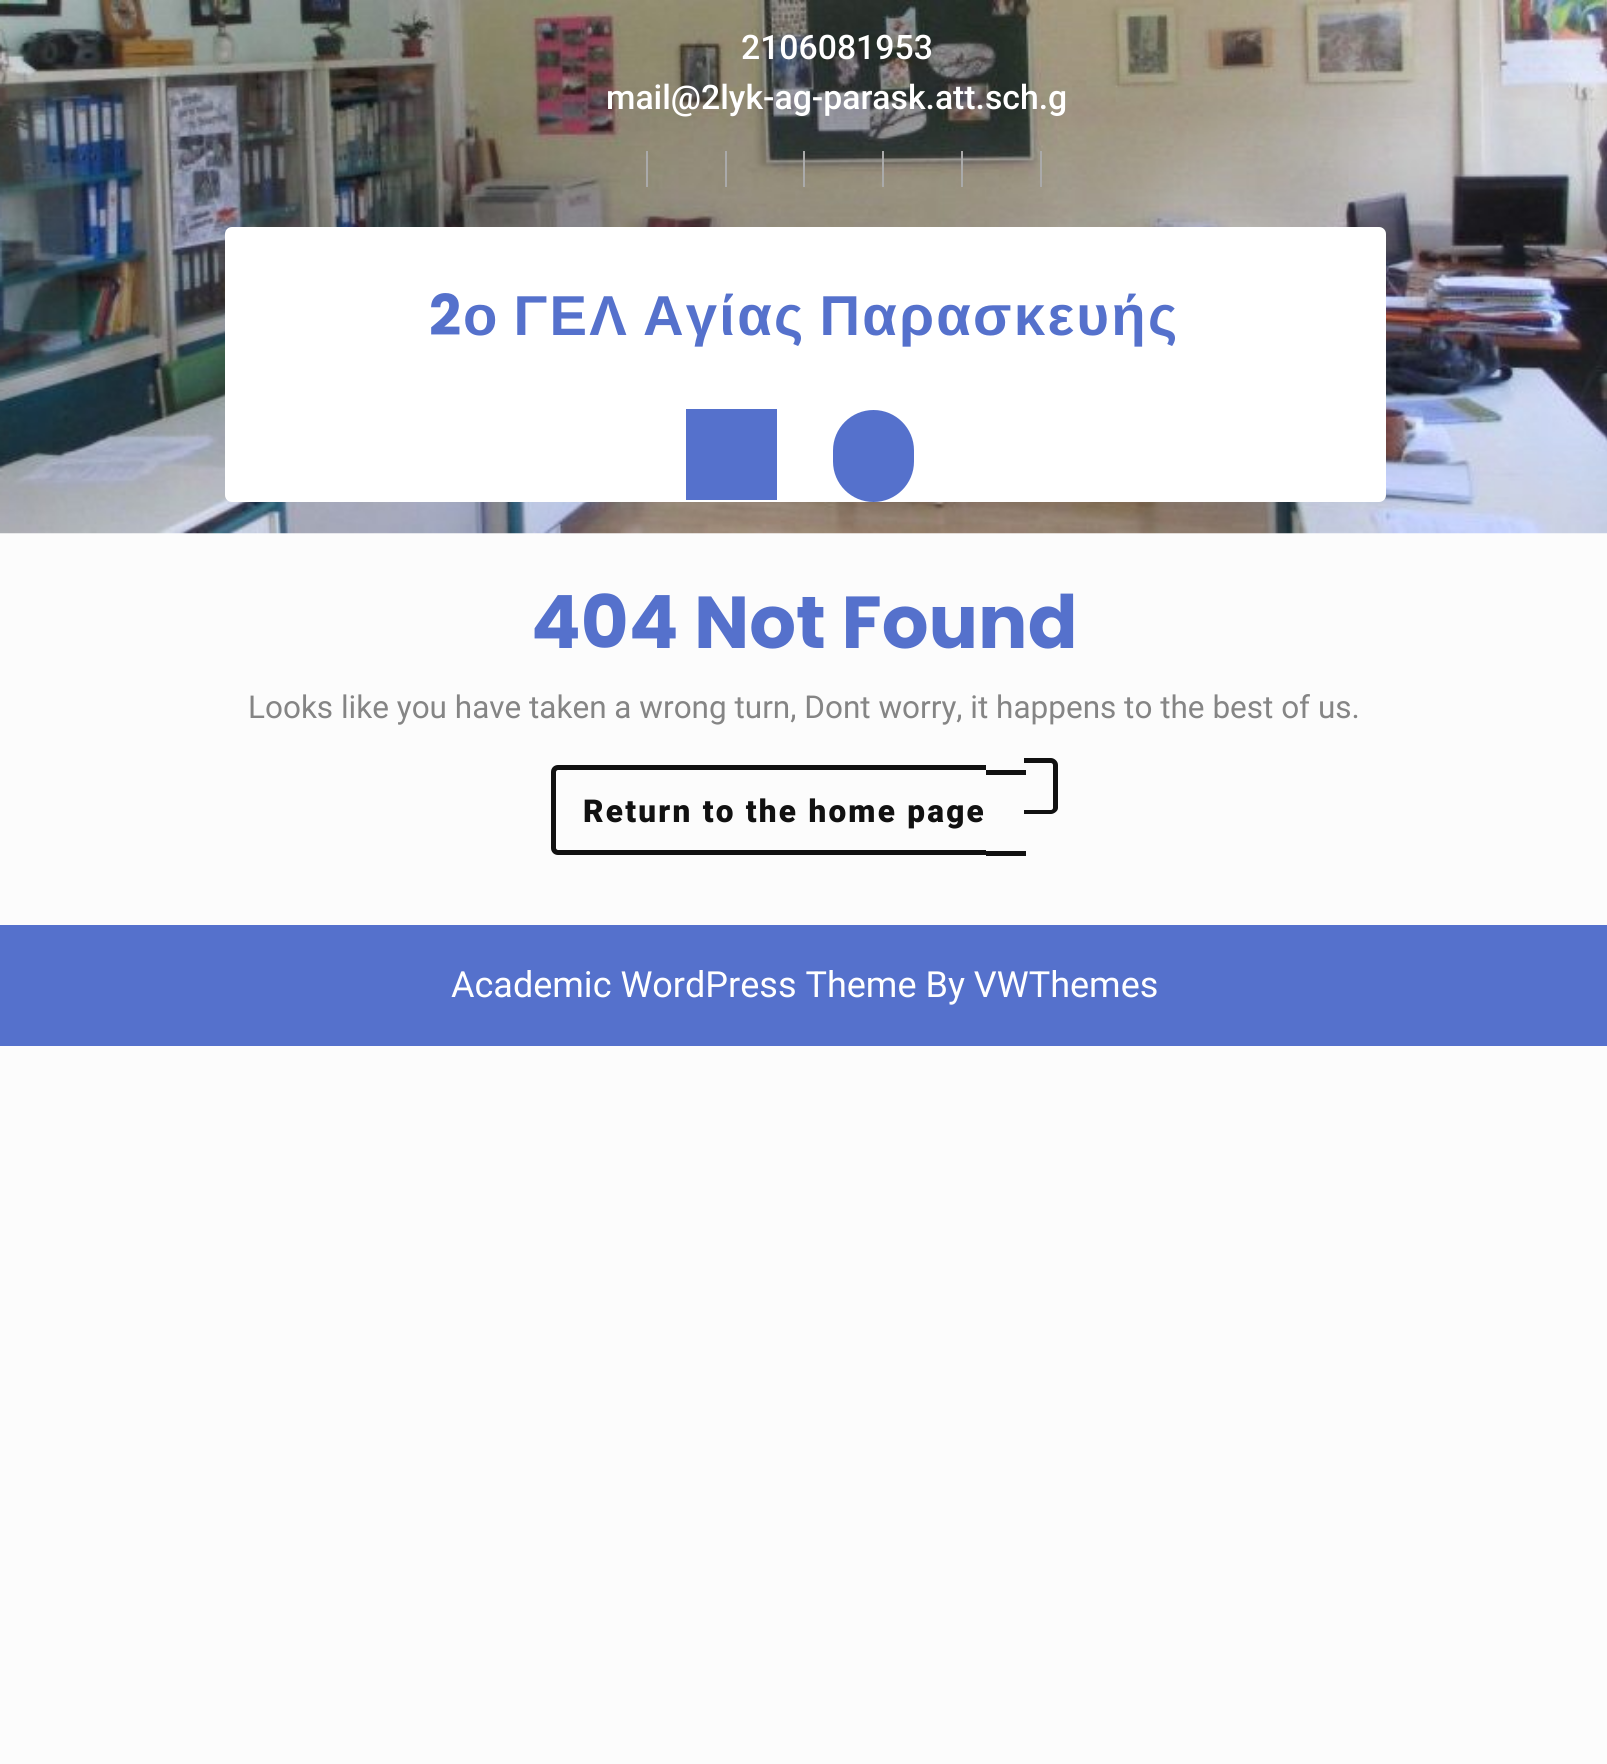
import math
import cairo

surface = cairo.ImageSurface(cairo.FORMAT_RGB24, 1607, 1764)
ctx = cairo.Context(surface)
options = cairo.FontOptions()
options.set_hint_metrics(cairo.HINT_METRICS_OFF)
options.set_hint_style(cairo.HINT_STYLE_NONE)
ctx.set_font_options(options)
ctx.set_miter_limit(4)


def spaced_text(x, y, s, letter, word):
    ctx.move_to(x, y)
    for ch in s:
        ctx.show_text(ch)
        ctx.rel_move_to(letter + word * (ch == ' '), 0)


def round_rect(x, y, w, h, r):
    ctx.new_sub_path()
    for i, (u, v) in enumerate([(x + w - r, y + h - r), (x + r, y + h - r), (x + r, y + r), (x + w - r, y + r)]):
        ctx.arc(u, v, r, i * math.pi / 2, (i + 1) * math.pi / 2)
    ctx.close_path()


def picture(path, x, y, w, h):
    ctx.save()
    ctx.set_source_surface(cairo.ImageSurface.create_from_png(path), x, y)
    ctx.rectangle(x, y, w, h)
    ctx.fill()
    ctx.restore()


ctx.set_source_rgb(0.988, 0.988, 0.988)
ctx.paint()
picture("img1.png", 0, 0, 1607, 534)
ctx.select_font_face("Roboto Medium")
ctx.set_font_size(33.75)
ctx.set_source_rgb(1, 1, 1)
ctx.move_to(741, 59)
ctx.show_text("2106081953")
ctx.move_to(606, 109)
ctx.show_text("mail@2lyk-ag-parask.att.sch.g")
ctx.set_source_rgb(0.667, 0.667, 0.667)
ctx.rectangle(646, 151, 2, 36)
ctx.fill()
ctx.rectangle(725, 151, 2, 36)
ctx.fill()
ctx.rectangle(803, 151, 2, 36)
ctx.fill()
ctx.rectangle(882, 151, 2, 36)
ctx.fill()
ctx.rectangle(961, 151, 2, 36)
ctx.fill()
ctx.rectangle(1040, 151, 2, 36)
ctx.fill()
ctx.set_source_rgb(1, 1, 1)
round_rect(225, 227, 1161, 275, 7)
ctx.fill()
ctx.select_font_face("Poppins", cairo.FONT_SLANT_NORMAL, cairo.FONT_WEIGHT_BOLD)
ctx.set_font_size(56.25)
ctx.set_source_rgb(0.333, 0.443, 0.8)
spaced_text(429, 335, "2", 2.25, 0)
ctx.select_font_face("Liberation Sans", cairo.FONT_SLANT_NORMAL, cairo.FONT_WEIGHT_BOLD)
spaced_text(463, 335, "ο ΓΕΛ Αγίας Παρασκευής", 2.25, -4)
ctx.rectangle(686, 409, 91, 91)
ctx.fill()
round_rect(833, 410, 81, 92, 40.5)
ctx.fill()
ctx.select_font_face("Poppins", cairo.FONT_SLANT_NORMAL, cairo.FONT_WEIGHT_BOLD)
ctx.set_font_size(73.5)
ctx.move_to(531, 648)
ctx.show_text("404 Not Found")
ctx.select_font_face("Roboto")
ctx.set_font_size(31.5)
ctx.set_source_rgb(0.522, 0.522, 0.522)
ctx.move_to(248, 718)
ctx.show_text("Looks like you have taken a wrong turn, Dont worry, it happens to the best of us.")
ctx.set_source_rgb(0.067, 0.067, 0.067)
ctx.set_fill_rule(cairo.FILL_RULE_EVEN_ODD)
ctx.new_path()
ctx.move_to(558, 765)
ctx.line_to(986, 765)
ctx.line_to(986, 855)
ctx.line_to(558, 855)
ctx.curve_to(554, 855, 551, 852, 551, 848)
ctx.line_to(551, 772)
ctx.curve_to(551, 768, 554, 765, 558, 765)
ctx.close_path()
ctx.move_to(558, 770)
ctx.line_to(986, 770)
ctx.line_to(986, 850)
ctx.line_to(558, 850)
ctx.curve_to(557, 850, 556, 849, 556, 848)
ctx.line_to(556, 772)
ctx.curve_to(556, 771, 557, 770, 558, 770)
ctx.close_path()
ctx.fill()
ctx.select_font_face("Roboto Black")
spaced_text(583, 822, "Return to the home page", 2.25, 0)
ctx.rectangle(986, 770, 40, 5)
ctx.fill()
ctx.rectangle(986, 851, 40, 5)
ctx.fill()
ctx.new_path()
ctx.move_to(1024, 758)
ctx.line_to(1051, 758)
ctx.curve_to(1054, 758, 1058, 761, 1058, 765)
ctx.line_to(1058, 808)
ctx.curve_to(1058, 811, 1054, 814, 1051, 814)
ctx.line_to(1024, 814)
ctx.close_path()
ctx.move_to(1024, 763)
ctx.line_to(1051, 763)
ctx.curve_to(1052, 763, 1053, 764, 1053, 765)
ctx.line_to(1053, 808)
ctx.curve_to(1053, 809, 1052, 810, 1051, 810)
ctx.line_to(1024, 810)
ctx.close_path()
ctx.fill()
ctx.set_source_rgb(0.333, 0.443, 0.8)
ctx.rectangle(0, 925, 1607, 121)
ctx.fill()
ctx.select_font_face("Roboto")
ctx.set_font_size(36)
ctx.set_source_rgb(1, 1, 1)
ctx.move_to(451, 997)
ctx.show_text("Academic WordPress Theme By VWThemes")
surface.write_to_png("page.png")
